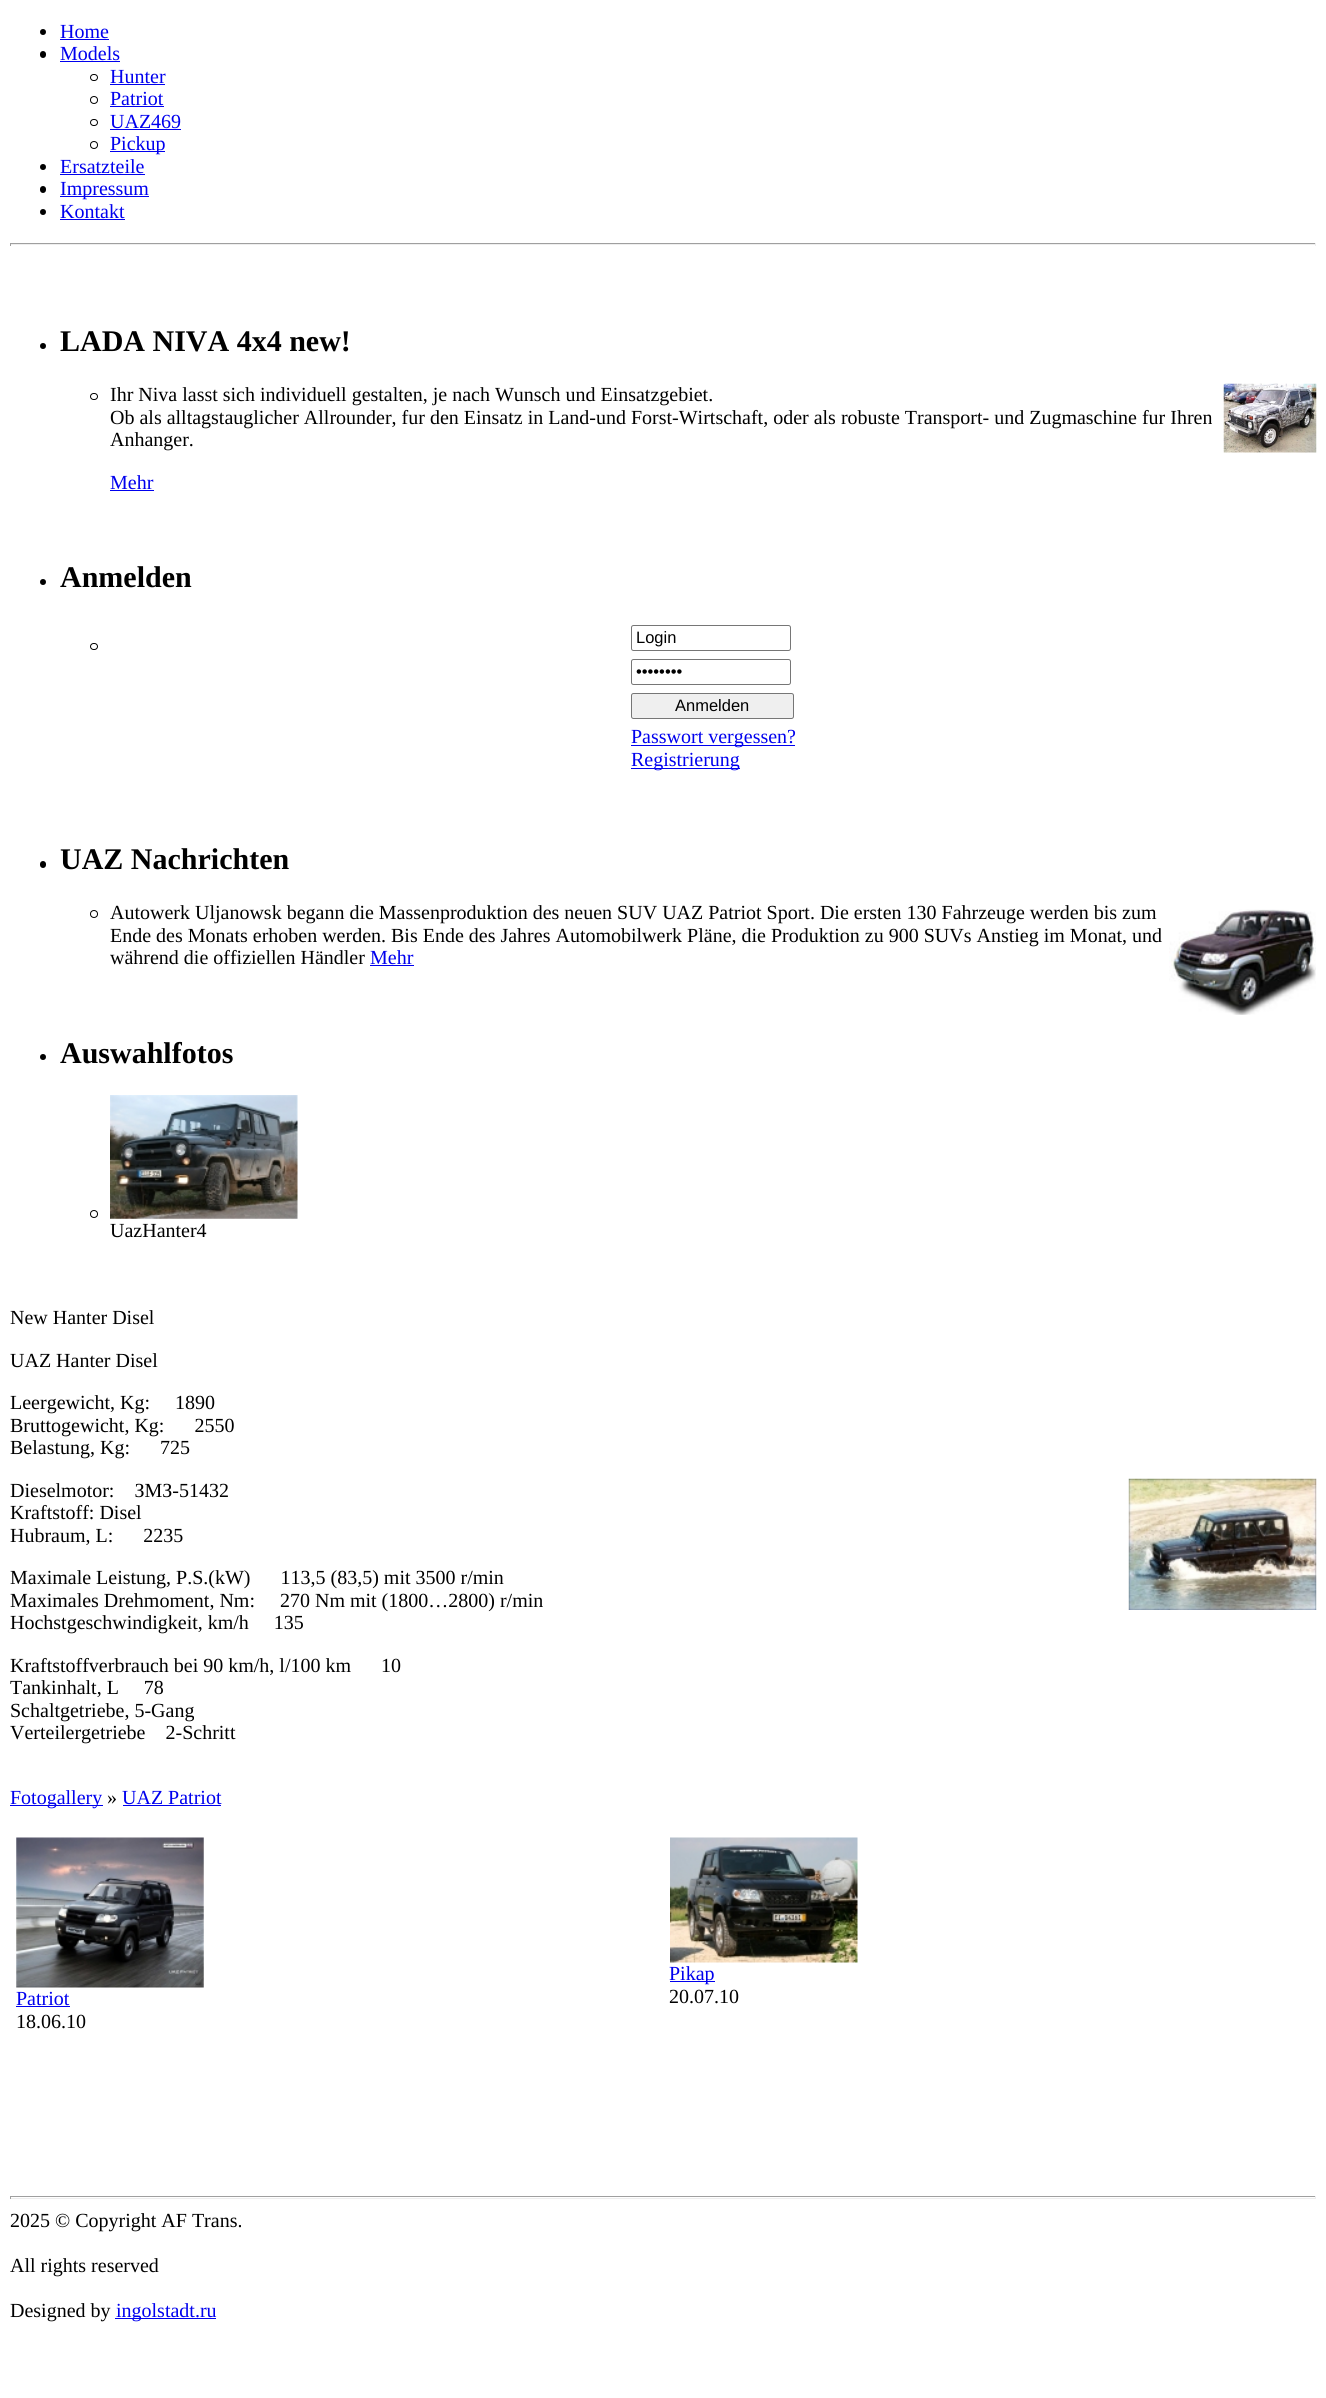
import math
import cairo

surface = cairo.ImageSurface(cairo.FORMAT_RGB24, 1326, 2398)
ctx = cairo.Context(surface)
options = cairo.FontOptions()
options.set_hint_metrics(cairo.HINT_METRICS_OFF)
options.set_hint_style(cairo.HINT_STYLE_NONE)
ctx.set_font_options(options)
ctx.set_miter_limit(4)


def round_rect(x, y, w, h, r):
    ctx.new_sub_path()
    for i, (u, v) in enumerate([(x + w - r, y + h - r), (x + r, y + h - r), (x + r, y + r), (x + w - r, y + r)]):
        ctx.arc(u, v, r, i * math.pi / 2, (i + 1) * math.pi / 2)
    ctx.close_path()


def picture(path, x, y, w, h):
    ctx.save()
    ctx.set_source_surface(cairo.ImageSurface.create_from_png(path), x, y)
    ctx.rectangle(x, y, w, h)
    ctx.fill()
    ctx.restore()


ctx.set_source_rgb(1, 1, 1)
ctx.paint()
ctx.set_source_rgb(0, 0, 0)
ctx.arc(43, 32, 3, 0, 2 * math.pi)
ctx.fill()
ctx.select_font_face("Liberation Serif")
ctx.set_font_size(20)
ctx.set_source_rgb(0, 0, 0.933)
ctx.move_to(60, 38)
ctx.show_text("Home")
ctx.rectangle(60, 39, 49, 1)
ctx.fill()
ctx.set_source_rgb(0, 0, 0)
round_rect(40, 51, 6, 7, 3)
ctx.fill()
ctx.set_source_rgb(0, 0, 0.933)
ctx.move_to(60, 60)
ctx.show_text("Models")
ctx.rectangle(60, 61, 60, 1)
ctx.fill()
round_rect(90.5, 74.5, 7, 6, 3)
ctx.set_source_rgb(0, 0, 0)
ctx.set_line_width(1)
ctx.stroke()
ctx.set_source_rgb(0, 0, 0.933)
ctx.move_to(110, 83)
ctx.show_text("Hunter")
ctx.rectangle(110, 84, 55, 1)
ctx.fill()
ctx.arc(94, 100, 3.5, 0, 2 * math.pi)
ctx.set_source_rgb(0, 0, 0)
ctx.stroke()
ctx.set_source_rgb(0, 0, 0.933)
ctx.move_to(110, 105)
ctx.show_text("Patriot")
ctx.rectangle(110, 106, 54, 1)
ctx.fill()
round_rect(90.5, 119.5, 7, 6, 3)
ctx.set_source_rgb(0, 0, 0)
ctx.stroke()
ctx.set_source_rgb(0, 0, 0.933)
ctx.move_to(110, 128)
ctx.show_text("UAZ469")
ctx.rectangle(110, 129, 71, 1)
ctx.fill()
ctx.arc(94, 145, 3.5, 0, 2 * math.pi)
ctx.set_source_rgb(0, 0, 0)
ctx.stroke()
ctx.set_source_rgb(0, 0, 0.933)
ctx.rectangle(110, 151, 55, 1)
ctx.fill()
ctx.move_to(110, 150)
ctx.show_text("Pickup")
ctx.set_source_rgb(0, 0, 0)
ctx.new_path()
ctx.arc(43, 167, 3, 0, 2 * math.pi)
ctx.fill()
ctx.set_source_rgb(0, 0, 0.933)
ctx.move_to(60, 173)
ctx.show_text("Ersatzteile")
ctx.rectangle(60, 174, 85, 1)
ctx.fill()
ctx.set_source_rgb(0, 0, 0)
round_rect(40, 186, 6, 7, 3)
ctx.fill()
ctx.set_source_rgb(0, 0, 0.933)
ctx.rectangle(60, 196, 89, 1)
ctx.fill()
ctx.move_to(60, 195)
ctx.show_text("Impressum")
ctx.set_source_rgb(0, 0, 0)
ctx.new_path()
ctx.arc(43, 212, 3, 0, 2 * math.pi)
ctx.fill()
ctx.set_source_rgb(0, 0, 0.933)
ctx.move_to(60, 218)
ctx.show_text("Kontakt")
ctx.rectangle(60, 219, 65, 1)
ctx.fill()
ctx.set_source_rgb(0.624, 0.624, 0.624)
ctx.rectangle(10, 243, 1306, 1)
ctx.fill()
ctx.set_source_rgb(0.933, 0.933, 0.933)
ctx.rectangle(1315, 243, 1, 3)
ctx.fill()
ctx.rectangle(10, 244, 1306, 1)
ctx.fill()
ctx.set_source_rgb(0.624, 0.624, 0.624)
ctx.rectangle(10, 243, 1, 3)
ctx.fill()
ctx.set_source_rgb(0, 0, 0)
ctx.arc(43, 346, 3, 0, 2 * math.pi)
ctx.fill()
ctx.select_font_face("Liberation Serif", cairo.FONT_SLANT_NORMAL, cairo.FONT_WEIGHT_BOLD)
ctx.set_font_size(30)
ctx.move_to(60, 351)
ctx.show_text("LADA NIVA 4x4 new!")
round_rect(90.5, 393.5, 7, 6, 3)
ctx.stroke()
ctx.select_font_face("Liberation Serif")
ctx.set_font_size(20)
ctx.move_to(110, 401)
ctx.show_text("Ihr Niva lasst sich individuell gestalten, je nach Wunsch und Einsatzgebiet.")
picture("img1.png", 1223, 383, 94, 70)
ctx.move_to(110, 424)
ctx.show_text("Ob als alltagstauglicher Allrounder, fur den Einsatz in Land-und Forst-Wirtschaft, oder als robuste Transport- und Zugmaschine fur Ihren")
ctx.move_to(110, 446)
ctx.show_text("Anhanger.")
ctx.set_source_rgb(0, 0, 0.933)
ctx.move_to(110, 489)
ctx.show_text("Mehr")
ctx.rectangle(110, 490, 44, 1)
ctx.fill()
ctx.set_source_rgb(0, 0, 0)
ctx.arc(43, 582, 3, 0, 2 * math.pi)
ctx.fill()
ctx.select_font_face("Liberation Serif", cairo.FONT_SLANT_NORMAL, cairo.FONT_WEIGHT_BOLD)
ctx.set_font_size(30)
ctx.move_to(60, 587)
ctx.show_text("Anmelden")
round_rect(90.5, 643.5, 7, 6, 3)
ctx.stroke()
round_rect(631.5, 625.5, 159, 25, 2)
ctx.set_source_rgb(0.463, 0.463, 0.463)
ctx.stroke()
ctx.select_font_face("Liberation Sans")
ctx.set_font_size(16.5)
ctx.set_source_rgb(0, 0, 0)
ctx.move_to(636, 643)
ctx.show_text("Login")
round_rect(631.5, 659.5, 159, 25, 2)
ctx.set_source_rgb(0.463, 0.463, 0.463)
ctx.stroke()
ctx.set_source_rgb(0, 0, 0)
ctx.move_to(636, 677)
ctx.show_text("••••••••")
ctx.set_source_rgb(0.937, 0.937, 0.937)
round_rect(631.5, 693.5, 162, 25, 2)
ctx.fill_preserve()
ctx.set_source_rgb(0.463, 0.463, 0.463)
ctx.stroke()
ctx.set_source_rgb(0, 0, 0)
ctx.move_to(675, 711)
ctx.show_text("Anmelden")
ctx.set_source_rgb(0, 0, 0.933)
ctx.rectangle(631, 745, 164, 1)
ctx.fill()
ctx.select_font_face("Liberation Serif")
ctx.set_font_size(20)
ctx.move_to(631, 743)
ctx.show_text("Passwort vergessen?")
ctx.rectangle(631, 768, 109, 1)
ctx.fill()
ctx.move_to(631, 766)
ctx.show_text("Registrierung")
ctx.set_source_rgb(0, 0, 0)
round_rect(40, 861, 6, 7, 3)
ctx.fill()
ctx.select_font_face("Liberation Serif", cairo.FONT_SLANT_NORMAL, cairo.FONT_WEIGHT_BOLD)
ctx.set_font_size(30)
ctx.move_to(60, 869)
ctx.show_text("UAZ Nachrichten")
ctx.new_path()
ctx.arc(94, 914, 3.5, 0, 2 * math.pi)
ctx.stroke()
ctx.select_font_face("Liberation Serif")
ctx.set_font_size(20)
ctx.move_to(110, 919)
ctx.show_text("Autowerk Uljanowsk begann die Massenproduktion des neuen SUV UAZ Patriot Sport. Die ersten 130 Fahrzeuge werden bis zum")
ctx.move_to(110, 942)
ctx.show_text("Ende des Monats erhoben werden. Bis Ende des Jahres Automobilwerk Pläne, die Produktion zu 900 SUVs Anstieg im Monat, und")
ctx.move_to(110, 964)
ctx.show_text("während die offiziellen Händler")
ctx.set_source_rgb(0, 0, 0.933)
ctx.move_to(370, 964)
ctx.show_text("Mehr")
ctx.rectangle(370, 965, 44, 1)
ctx.fill()
picture("img2.png", 1169, 909, 147, 106)
ctx.set_source_rgb(0, 0, 0)
ctx.arc(43, 1057, 3, 0, 2 * math.pi)
ctx.fill()
ctx.select_font_face("Liberation Serif", cairo.FONT_SLANT_NORMAL, cairo.FONT_WEIGHT_BOLD)
ctx.set_font_size(30)
ctx.move_to(60, 1063)
ctx.show_text("Auswahlfotos")
ctx.new_path()
ctx.arc(94, 1214, 3.5, 0, 2 * math.pi)
ctx.stroke()
picture("img3.png", 110, 1095, 188, 124)
ctx.select_font_face("Liberation Serif")
ctx.set_font_size(20)
ctx.move_to(110, 1237)
ctx.show_text("UazHanter4")
ctx.move_to(10, 1324)
ctx.show_text("New Hanter Disel")
ctx.move_to(10, 1367)
ctx.show_text("UAZ Hanter Disel")
ctx.move_to(10, 1409)
ctx.show_text("Leergewicht, Kg:     1890")
ctx.move_to(10, 1432)
ctx.show_text("Bruttogewicht, Kg:      2550")
ctx.move_to(10, 1454)
ctx.show_text("Belastung, Kg:      725")
ctx.move_to(10, 1497)
ctx.show_text("Dieselmotor:    ЗМЗ-51432")
ctx.move_to(10, 1519)
ctx.show_text("Kraftstoff: Disel")
ctx.move_to(10, 1542)
ctx.show_text("Hubraum, L:      2235")
picture("img4.png", 1128, 1478, 189, 132)
ctx.move_to(10, 1584)
ctx.show_text("Maximale Leistung, P.S.(kW)      113,5 (83,5) mit 3500 r/min")
ctx.move_to(10, 1607)
ctx.show_text("Maximales Drehmoment, Nm:     270 Nm mit (1800…2800) r/min")
ctx.move_to(10, 1629)
ctx.show_text("Hochstgeschwindigkeit, km/h     135")
ctx.move_to(10, 1672)
ctx.show_text("Kraftstoffverbrauch bei 90 km/h, l/100 km      10")
ctx.move_to(10, 1694)
ctx.show_text("Tankinhalt, L     78")
ctx.move_to(10, 1717)
ctx.show_text("Schaltgetriebe, 5-Gang")
ctx.move_to(10, 1739)
ctx.show_text("Verteilergetriebe    2-Schritt")
ctx.set_source_rgb(0, 0, 0.933)
ctx.rectangle(10, 1805, 93, 1)
ctx.fill()
ctx.move_to(10, 1804)
ctx.show_text("Fotogallery")
ctx.set_source_rgb(0, 0, 0)
ctx.move_to(107, 1804)
ctx.show_text("»")
ctx.set_source_rgb(0, 0, 0.933)
ctx.move_to(122, 1804)
ctx.show_text("UAZ Patriot")
ctx.rectangle(123, 1805, 98, 1)
ctx.fill()
picture("img5.png", 670, 1837, 188, 126)
ctx.rectangle(670, 1981, 45, 1)
ctx.fill()
ctx.move_to(669, 1980)
ctx.show_text("Pikap")
ctx.set_source_rgb(0, 0, 0)
ctx.move_to(669, 2003)
ctx.show_text("20.07.10")
picture("img6.png", 16, 1837, 188, 151)
ctx.set_source_rgb(0, 0, 0.933)
ctx.move_to(16, 2005)
ctx.show_text("Patriot")
ctx.rectangle(16, 2006, 54, 1)
ctx.fill()
ctx.set_source_rgb(0, 0, 0)
ctx.move_to(16, 2028)
ctx.show_text("18.06.10")
ctx.set_source_rgb(0.624, 0.624, 0.624)
ctx.rectangle(10, 2196, 1306, 1)
ctx.fill()
ctx.set_source_rgb(0.933, 0.933, 0.933)
ctx.rectangle(1315, 2196, 1, 3)
ctx.fill()
ctx.rectangle(10, 2198, 1306, 1)
ctx.fill()
ctx.set_source_rgb(0.624, 0.624, 0.624)
ctx.rectangle(10, 2196, 1, 3)
ctx.fill()
ctx.set_source_rgb(0, 0, 0)
ctx.move_to(10, 2227)
ctx.show_text("2025 © Copyright AF Trans.")
ctx.move_to(10, 2272)
ctx.show_text("All rights reserved")
ctx.move_to(10, 2317)
ctx.show_text("Designed by")
ctx.set_source_rgb(0, 0, 0.933)
ctx.rectangle(115, 2318, 101, 1)
ctx.fill()
ctx.move_to(116, 2317)
ctx.show_text("ingolstadt.ru")
surface.write_to_png("page.png")
